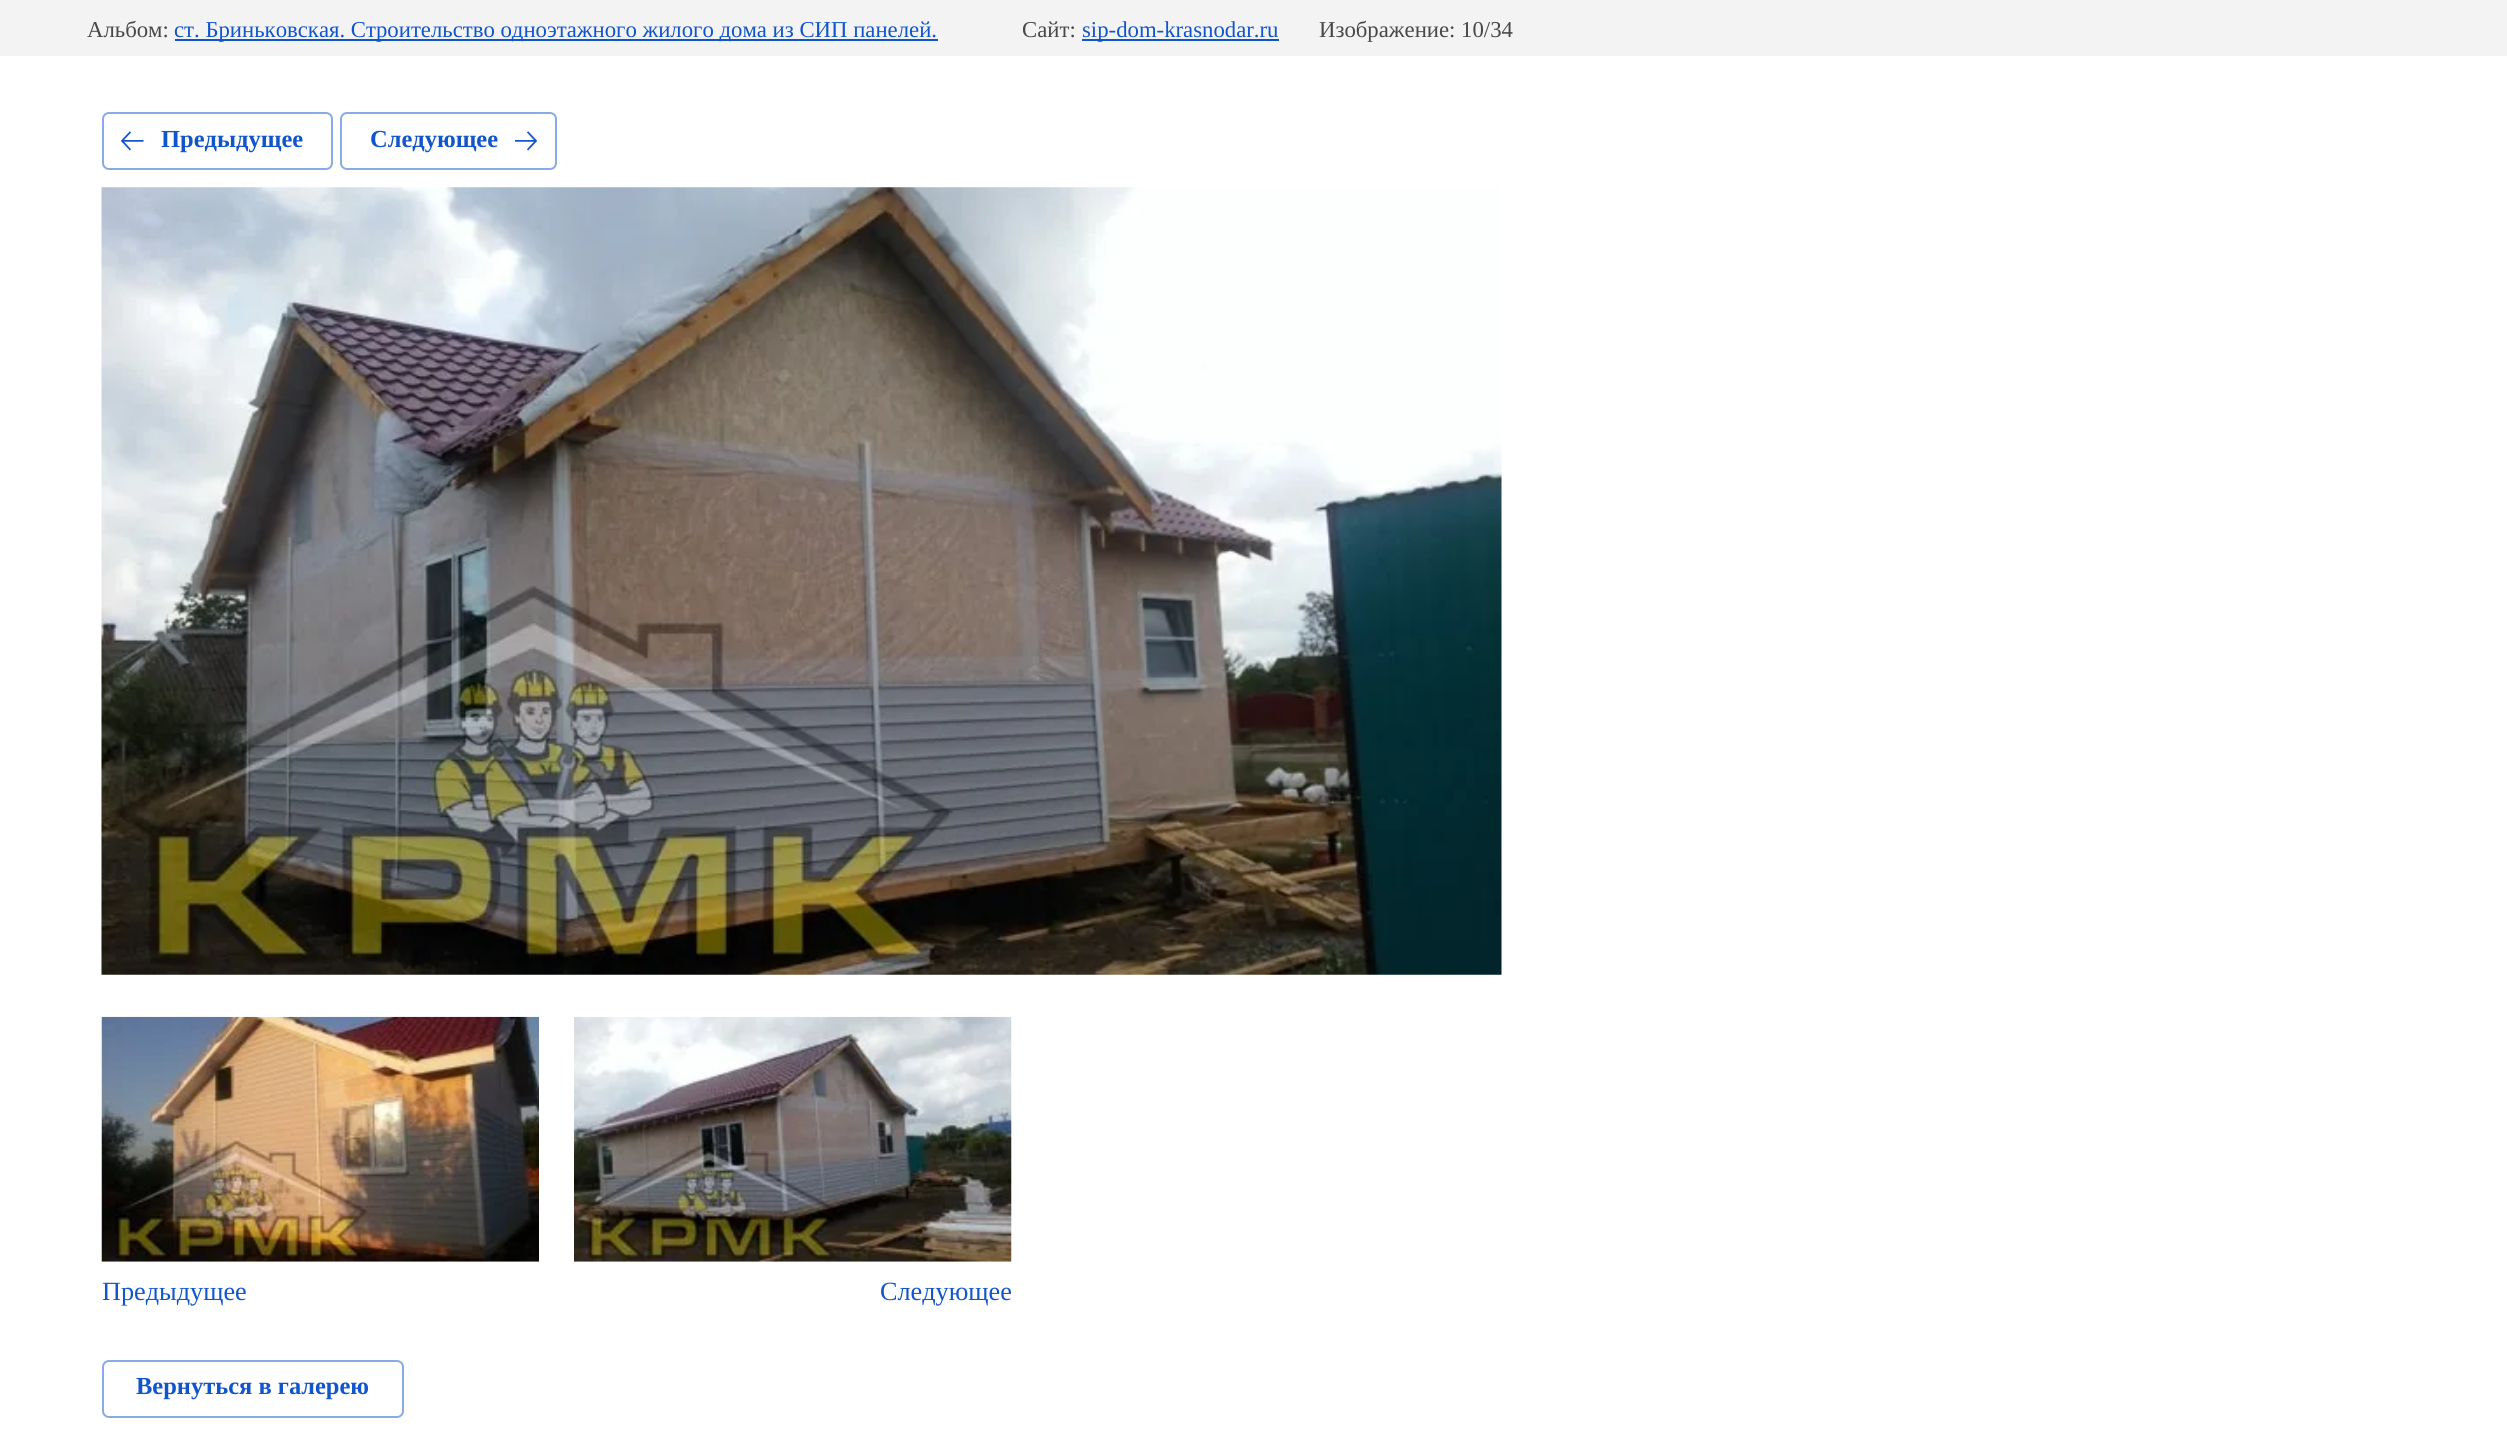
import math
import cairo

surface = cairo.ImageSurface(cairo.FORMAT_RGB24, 2507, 1439)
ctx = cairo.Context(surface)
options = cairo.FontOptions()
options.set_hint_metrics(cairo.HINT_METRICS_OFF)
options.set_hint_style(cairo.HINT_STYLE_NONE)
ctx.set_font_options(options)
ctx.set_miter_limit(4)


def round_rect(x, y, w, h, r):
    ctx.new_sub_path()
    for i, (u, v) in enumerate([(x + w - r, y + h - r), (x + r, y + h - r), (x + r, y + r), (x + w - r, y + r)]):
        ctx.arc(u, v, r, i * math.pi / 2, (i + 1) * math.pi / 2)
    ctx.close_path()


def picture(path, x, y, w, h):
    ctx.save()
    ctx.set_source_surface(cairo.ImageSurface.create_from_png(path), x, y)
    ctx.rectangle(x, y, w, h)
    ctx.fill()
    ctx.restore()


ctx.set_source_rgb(1, 1, 1)
ctx.paint()
ctx.set_source_rgb(0.953, 0.953, 0.953)
ctx.rectangle(0, 0, 2507, 56)
ctx.fill()
ctx.select_font_face("Liberation Serif")
ctx.set_font_size(22.75)
ctx.set_source_rgb(0.282, 0.282, 0.282)
ctx.move_to(87, 37)
ctx.show_text("Альбом:")
ctx.set_source_rgb(0.067, 0.333, 0.8)
ctx.rectangle(175, 39, 763, 2)
ctx.fill()
ctx.move_to(174, 37)
ctx.show_text("ст. Бриньковская. Строительство одноэтажного жилого дома из СИП панелей.")
ctx.set_source_rgb(0.282, 0.282, 0.282)
ctx.move_to(1022, 37)
ctx.show_text("Сайт:")
ctx.set_source_rgb(0.067, 0.333, 0.8)
ctx.rectangle(1082, 39, 197, 2)
ctx.fill()
ctx.move_to(1082, 37)
ctx.show_text("sip-dom-krasnodar.ru")
ctx.set_source_rgb(0.282, 0.282, 0.282)
ctx.move_to(1319, 37)
ctx.show_text("Изображение: 10/34")
round_rect(103, 113, 229, 56, 6)
ctx.set_source_rgb(0.533, 0.667, 0.902)
ctx.stroke()
picture("img1.png", 121, 131, 23, 20)
ctx.select_font_face("Liberation Serif", cairo.FONT_SLANT_NORMAL, cairo.FONT_WEIGHT_BOLD)
ctx.set_font_size(24.5)
ctx.set_source_rgb(0.067, 0.333, 0.8)
ctx.move_to(161, 147)
ctx.show_text("Предыдущее")
round_rect(341, 113, 215, 56, 6)
ctx.set_source_rgb(0.533, 0.667, 0.902)
ctx.stroke()
ctx.set_source_rgb(0.067, 0.333, 0.8)
ctx.move_to(370, 147)
ctx.show_text("Следующее")
picture("img2.png", 515, 131, 22, 20)
picture("img3.png", 101, 187, 1401, 788)
picture("img4.png", 101, 1016, 438, 246)
ctx.select_font_face("Liberation Serif")
ctx.set_font_size(26.25)
ctx.move_to(102, 1300)
ctx.show_text("Предыдущее")
picture("img5.png", 574, 1016, 438, 246)
ctx.move_to(880, 1300)
ctx.show_text("Следующее")
round_rect(103, 1361, 300, 56, 6)
ctx.set_source_rgb(0.533, 0.667, 0.902)
ctx.stroke()
ctx.select_font_face("Liberation Serif", cairo.FONT_SLANT_NORMAL, cairo.FONT_WEIGHT_BOLD)
ctx.set_font_size(24.5)
ctx.set_source_rgb(0.067, 0.333, 0.8)
ctx.move_to(136, 1394)
ctx.show_text("Вернуться в галерею")
surface.write_to_png("page.png")
